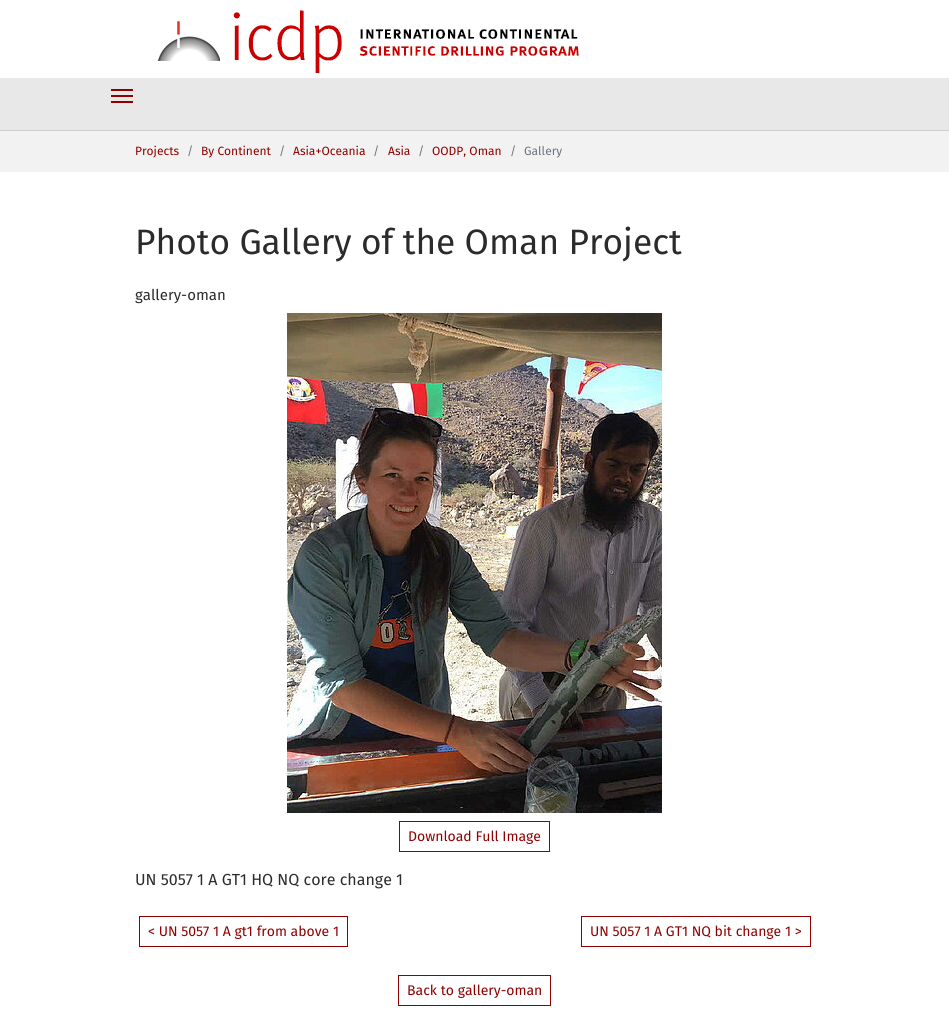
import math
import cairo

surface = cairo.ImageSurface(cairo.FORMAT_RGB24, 949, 1010)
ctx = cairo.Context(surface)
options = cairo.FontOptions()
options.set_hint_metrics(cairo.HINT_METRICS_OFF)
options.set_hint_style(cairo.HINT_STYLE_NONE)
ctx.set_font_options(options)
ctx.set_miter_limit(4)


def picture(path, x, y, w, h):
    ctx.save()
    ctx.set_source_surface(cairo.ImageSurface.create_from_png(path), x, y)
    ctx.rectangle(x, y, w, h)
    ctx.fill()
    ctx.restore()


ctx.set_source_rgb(1, 1, 1)
ctx.paint()
picture("img1.png", 157, 10, 422, 63)
ctx.set_source_rgb(0.808, 0.808, 0.808)
ctx.rectangle(0, 130, 949, 1)
ctx.fill()
ctx.set_source_rgb(0.91, 0.91, 0.91)
ctx.rectangle(0, 78, 949, 52)
ctx.fill()
ctx.set_source_rgb(0.565, 0, 0)
ctx.rectangle(111, 95, 22, 2)
ctx.fill()
ctx.rectangle(111, 89, 22, 2)
ctx.fill()
ctx.rectangle(111, 101, 22, 2)
ctx.fill()
ctx.set_source_rgb(0.949, 0.949, 0.949)
ctx.rectangle(0, 131, 949, 41)
ctx.fill()
ctx.select_font_face("Fira Sans")
ctx.set_font_size(12)
ctx.set_source_rgb(0.565, 0, 0)
ctx.move_to(135, 155)
ctx.show_text("Projects")
ctx.set_source_rgb(0.424, 0.459, 0.49)
ctx.move_to(187, 155)
ctx.show_text("/")
ctx.set_source_rgb(0.565, 0, 0)
ctx.move_to(201, 155)
ctx.show_text("By Continent")
ctx.set_source_rgb(0.424, 0.459, 0.49)
ctx.move_to(279, 155)
ctx.show_text("/")
ctx.set_source_rgb(0.565, 0, 0)
ctx.move_to(293, 155)
ctx.show_text("Asia+Oceania")
ctx.set_source_rgb(0.424, 0.459, 0.49)
ctx.move_to(373, 155)
ctx.show_text("/")
ctx.set_source_rgb(0.565, 0, 0)
ctx.move_to(388, 155)
ctx.show_text("Asia")
ctx.set_source_rgb(0.424, 0.459, 0.49)
ctx.move_to(418, 155)
ctx.show_text("/")
ctx.set_source_rgb(0.565, 0, 0)
ctx.move_to(432, 155)
ctx.show_text("OODP, Oman")
ctx.set_source_rgb(0.424, 0.459, 0.49)
ctx.move_to(510, 155)
ctx.show_text("/")
ctx.move_to(524, 155)
ctx.show_text("Gallery")
ctx.set_font_size(35.25)
ctx.set_source_rgb(0.169, 0.169, 0.169)
ctx.move_to(135, 254)
ctx.show_text("Photo Gallery of the Oman Project")
ctx.set_font_size(15)
ctx.move_to(135, 300)
ctx.show_text("gallery-oman")
picture("img2.png", 287, 313, 375, 500)
ctx.rectangle(399.5, 821.5, 150, 30)
ctx.set_source_rgb(0.565, 0, 0)
ctx.set_line_width(1)
ctx.stroke()
ctx.set_font_size(14)
ctx.move_to(408, 841)
ctx.show_text("Download Full Image")
ctx.set_font_size(16)
ctx.set_source_rgb(0.169, 0.169, 0.169)
ctx.move_to(135, 885)
ctx.show_text("UN 5057 1 A GT1 HQ NQ core change 1")
ctx.rectangle(139.5, 916.5, 208, 30)
ctx.set_source_rgb(0.565, 0, 0)
ctx.stroke()
ctx.set_font_size(14)
ctx.move_to(148, 936)
ctx.show_text("< UN 5057 1 A gt1 from above 1")
ctx.rectangle(581.5, 916.5, 229, 30)
ctx.stroke()
ctx.move_to(590, 936)
ctx.show_text("UN 5057 1 A GT1 NQ bit change 1 >")
ctx.rectangle(398.5, 975.5, 152, 30)
ctx.stroke()
ctx.move_to(407, 995)
ctx.show_text("Back to gallery-oman")
surface.write_to_png("page.png")
